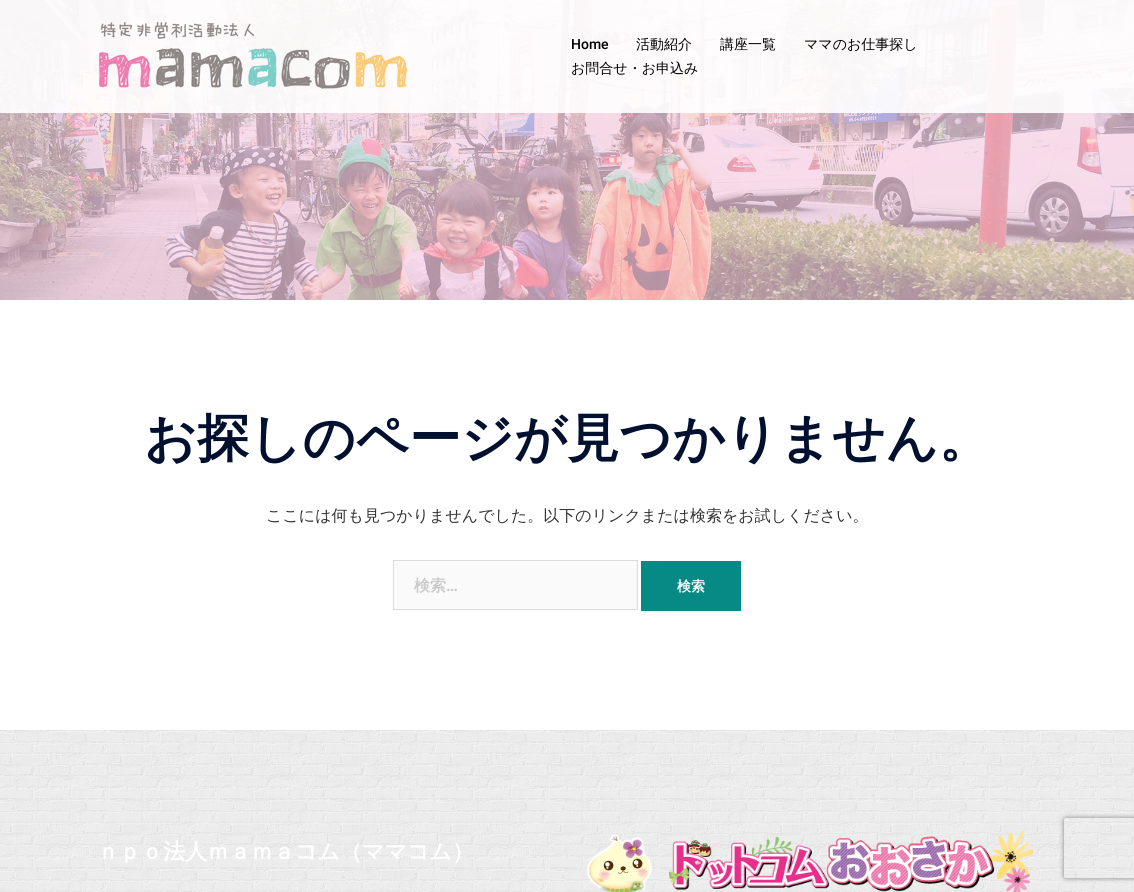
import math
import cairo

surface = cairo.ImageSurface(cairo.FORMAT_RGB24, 1134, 892)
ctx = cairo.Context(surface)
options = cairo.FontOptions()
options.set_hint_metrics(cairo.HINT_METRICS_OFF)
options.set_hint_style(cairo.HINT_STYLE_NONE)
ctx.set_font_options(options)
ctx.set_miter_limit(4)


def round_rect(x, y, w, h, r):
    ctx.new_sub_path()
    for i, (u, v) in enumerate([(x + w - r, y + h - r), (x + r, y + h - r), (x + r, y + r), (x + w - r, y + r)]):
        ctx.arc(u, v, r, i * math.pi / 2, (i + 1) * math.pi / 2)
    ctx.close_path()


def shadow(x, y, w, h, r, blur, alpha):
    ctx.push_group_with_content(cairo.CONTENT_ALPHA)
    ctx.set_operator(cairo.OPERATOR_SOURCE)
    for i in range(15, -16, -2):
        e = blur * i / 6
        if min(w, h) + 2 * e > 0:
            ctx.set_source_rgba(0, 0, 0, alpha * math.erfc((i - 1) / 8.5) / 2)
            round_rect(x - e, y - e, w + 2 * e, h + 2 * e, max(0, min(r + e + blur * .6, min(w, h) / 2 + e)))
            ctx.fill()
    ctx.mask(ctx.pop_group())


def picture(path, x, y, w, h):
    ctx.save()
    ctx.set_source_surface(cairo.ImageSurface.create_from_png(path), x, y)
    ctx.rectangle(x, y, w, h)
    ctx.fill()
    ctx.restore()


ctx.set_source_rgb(1, 1, 1)
ctx.paint()
picture("img1.png", 0, 0, 1134, 300)
ctx.set_source_rgba(1, 1, 1, 0.9)
ctx.rectangle(0, 0, 1134, 113)
ctx.fill()
picture("img2.png", 99, 22, 308, 67)
ctx.select_font_face("Roboto Medium")
ctx.set_font_size(14)
ctx.set_source_rgb(0, 0, 0)
ctx.move_to(571, 49)
ctx.show_text("Home")
ctx.select_font_face("WenQuanYi Zen Hei Medium")
ctx.move_to(636, 49)
ctx.show_text("活動紹介")
ctx.move_to(720, 49)
ctx.show_text("講座一覧")
ctx.move_to(804, 49)
ctx.show_text("ママのお仕事探し")
ctx.move_to(571, 73)
ctx.show_text("お問合せ・お申込み")
ctx.select_font_face("WenQuanYi Zen Hei", cairo.FONT_SLANT_NORMAL, cairo.FONT_WEIGHT_BOLD)
ctx.set_font_size(52)
ctx.set_source_rgb(0, 0.063, 0.18)
ctx.move_to(144, 456)
ctx.show_text("お探しのページが見つかりません。")
ctx.select_font_face("WenQuanYi Zen Hei Medium")
ctx.set_font_size(16)
ctx.set_source_rgb(0.2, 0.2, 0.2)
ctx.move_to(266, 521)
ctx.show_text("ここには何も見つかりませんでした。以下のリンクまたは検索をお試しください。")
ctx.set_source_rgb(0.98, 0.98, 0.98)
ctx.rectangle(393.5, 560.5, 244, 49)
ctx.fill_preserve()
ctx.set_source_rgb(0.859, 0.859, 0.859)
ctx.set_line_width(1)
ctx.stroke()
ctx.select_font_face("WenQuanYi Zen Hei", cairo.FONT_SLANT_NORMAL, cairo.FONT_WEIGHT_BOLD)
ctx.set_source_rgb(0.792, 0.792, 0.792)
ctx.move_to(414, 591)
ctx.show_text("検索")
ctx.select_font_face("Roboto", cairo.FONT_SLANT_NORMAL, cairo.FONT_WEIGHT_BOLD)
ctx.move_to(446, 591)
ctx.show_text("…")
ctx.set_source_rgb(0.031, 0.541, 0.522)
ctx.rectangle(641, 561, 100, 50)
ctx.fill()
ctx.select_font_face("WenQuanYi Zen Hei", cairo.FONT_SLANT_NORMAL, cairo.FONT_WEIGHT_BOLD)
ctx.set_font_size(14)
ctx.set_source_rgb(1, 1, 1)
ctx.move_to(677, 591)
ctx.show_text("検索")
picture("img3.png", 0, 730, 1134, 162)
ctx.set_font_size(22)
ctx.move_to(97, 859)
ctx.show_text("ｎｐｏ法人ｍａｍａコム（ママコム）")
picture("img4.png", 586, 831, 448, 61)
ctx.save()
ctx.set_fill_rule(cairo.FILL_RULE_EVEN_ODD)
ctx.new_path()
ctx.move_to(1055, 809)
ctx.line_to(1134, 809)
ctx.line_to(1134, 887)
ctx.line_to(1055, 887)
ctx.close_path()
ctx.move_to(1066, 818)
ctx.line_to(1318, 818)
ctx.curve_to(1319, 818, 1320, 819, 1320, 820)
ctx.line_to(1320, 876)
ctx.curve_to(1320, 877, 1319, 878, 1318, 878)
ctx.line_to(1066, 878)
ctx.curve_to(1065, 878, 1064, 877, 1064, 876)
ctx.line_to(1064, 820)
ctx.curve_to(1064, 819, 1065, 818, 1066, 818)
ctx.close_path()
ctx.clip()
ctx.set_source_rgb(0.502, 0.502, 0.502)
shadow(1064, 818, 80, 60, 2, 2.5, 1)
ctx.restore()
surface.write_to_png("page.png")
